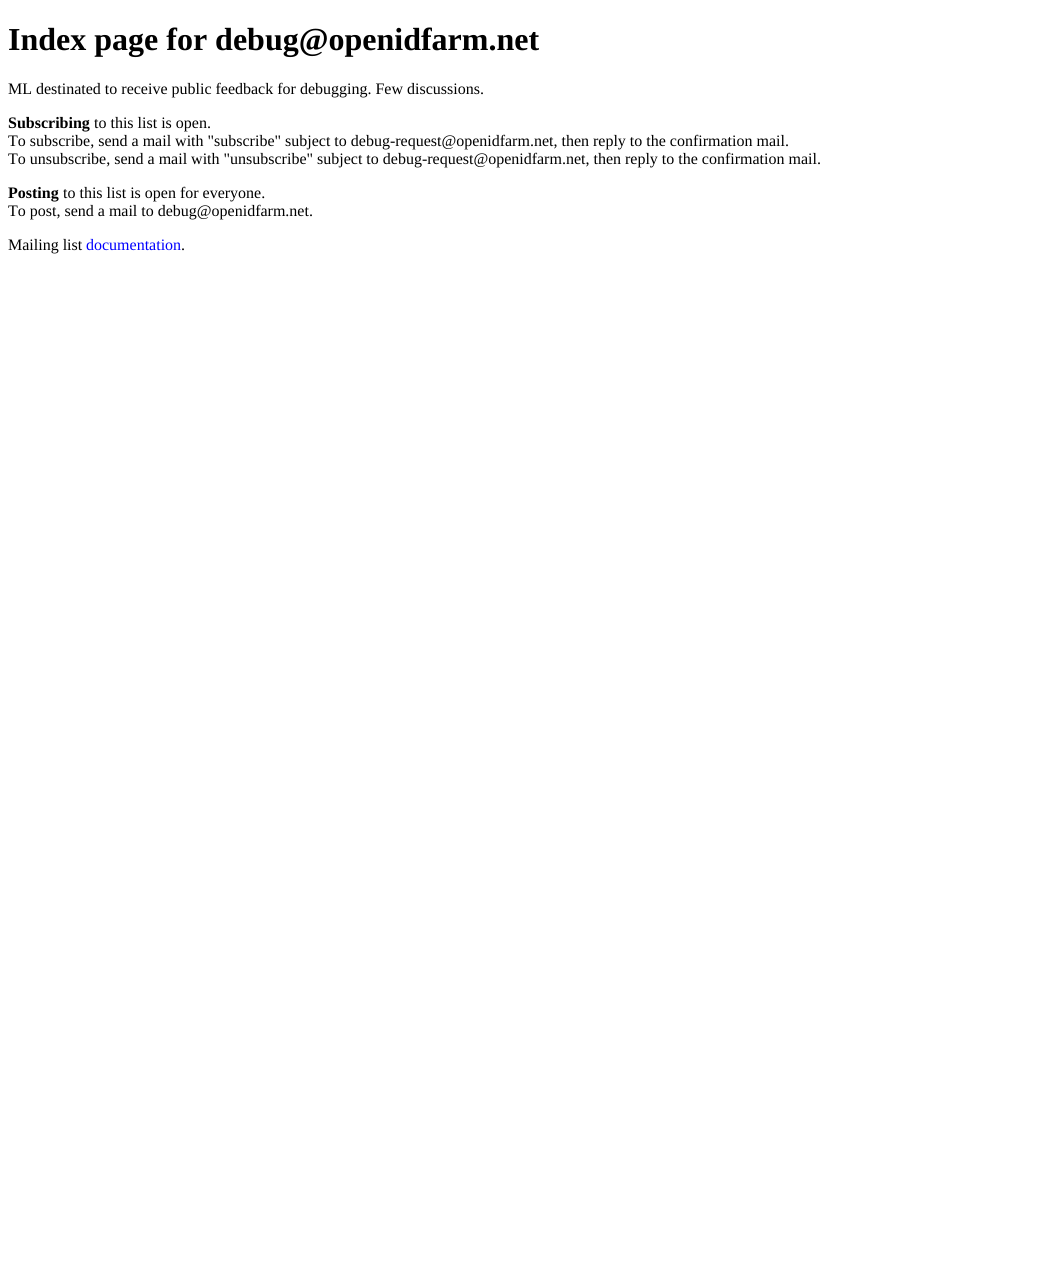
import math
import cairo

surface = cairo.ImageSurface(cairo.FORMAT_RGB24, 1062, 1286)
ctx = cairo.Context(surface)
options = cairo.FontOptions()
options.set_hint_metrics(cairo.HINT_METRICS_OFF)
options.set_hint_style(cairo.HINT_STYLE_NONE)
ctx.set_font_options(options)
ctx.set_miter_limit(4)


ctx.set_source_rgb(1, 1, 1)
ctx.paint()
ctx.select_font_face("Liberation Serif", cairo.FONT_SLANT_NORMAL, cairo.FONT_WEIGHT_BOLD)
ctx.set_font_size(32)
ctx.set_source_rgb(0, 0, 0)
ctx.move_to(8, 50)
ctx.show_text("Index page for debug@openidfarm.net")
ctx.select_font_face("Liberation Serif")
ctx.set_font_size(16)
ctx.move_to(8, 94)
ctx.show_text("ML destinated to receive public feedback for debugging. Few discussions.")
ctx.select_font_face("Liberation Serif", cairo.FONT_SLANT_NORMAL, cairo.FONT_WEIGHT_BOLD)
ctx.move_to(8, 128)
ctx.show_text("Subscribing")
ctx.select_font_face("Liberation Serif")
ctx.move_to(94, 128)
ctx.show_text("to this list is open.")
ctx.move_to(8, 146)
ctx.show_text("To subscribe, send a mail with \"subscribe\" subject to debug-request@openidfarm.net, then reply to the confirmation mail.")
ctx.move_to(8, 164)
ctx.show_text("To unsubscribe, send a mail with \"unsubscribe\" subject to debug-request@openidfarm.net, then reply to the confirmation mail.")
ctx.select_font_face("Liberation Serif", cairo.FONT_SLANT_NORMAL, cairo.FONT_WEIGHT_BOLD)
ctx.move_to(8, 198)
ctx.show_text("Posting")
ctx.select_font_face("Liberation Serif")
ctx.move_to(63, 198)
ctx.show_text("to this list is open for everyone.")
ctx.move_to(8, 216)
ctx.show_text("To post, send a mail to debug@openidfarm.net.")
ctx.move_to(8, 250)
ctx.show_text("Mailing list")
ctx.set_source_rgb(0, 0, 1)
ctx.move_to(86, 250)
ctx.show_text("documentation")
ctx.set_source_rgb(0, 0, 0)
ctx.move_to(181, 250)
ctx.show_text(".")
surface.write_to_png("page.png")
